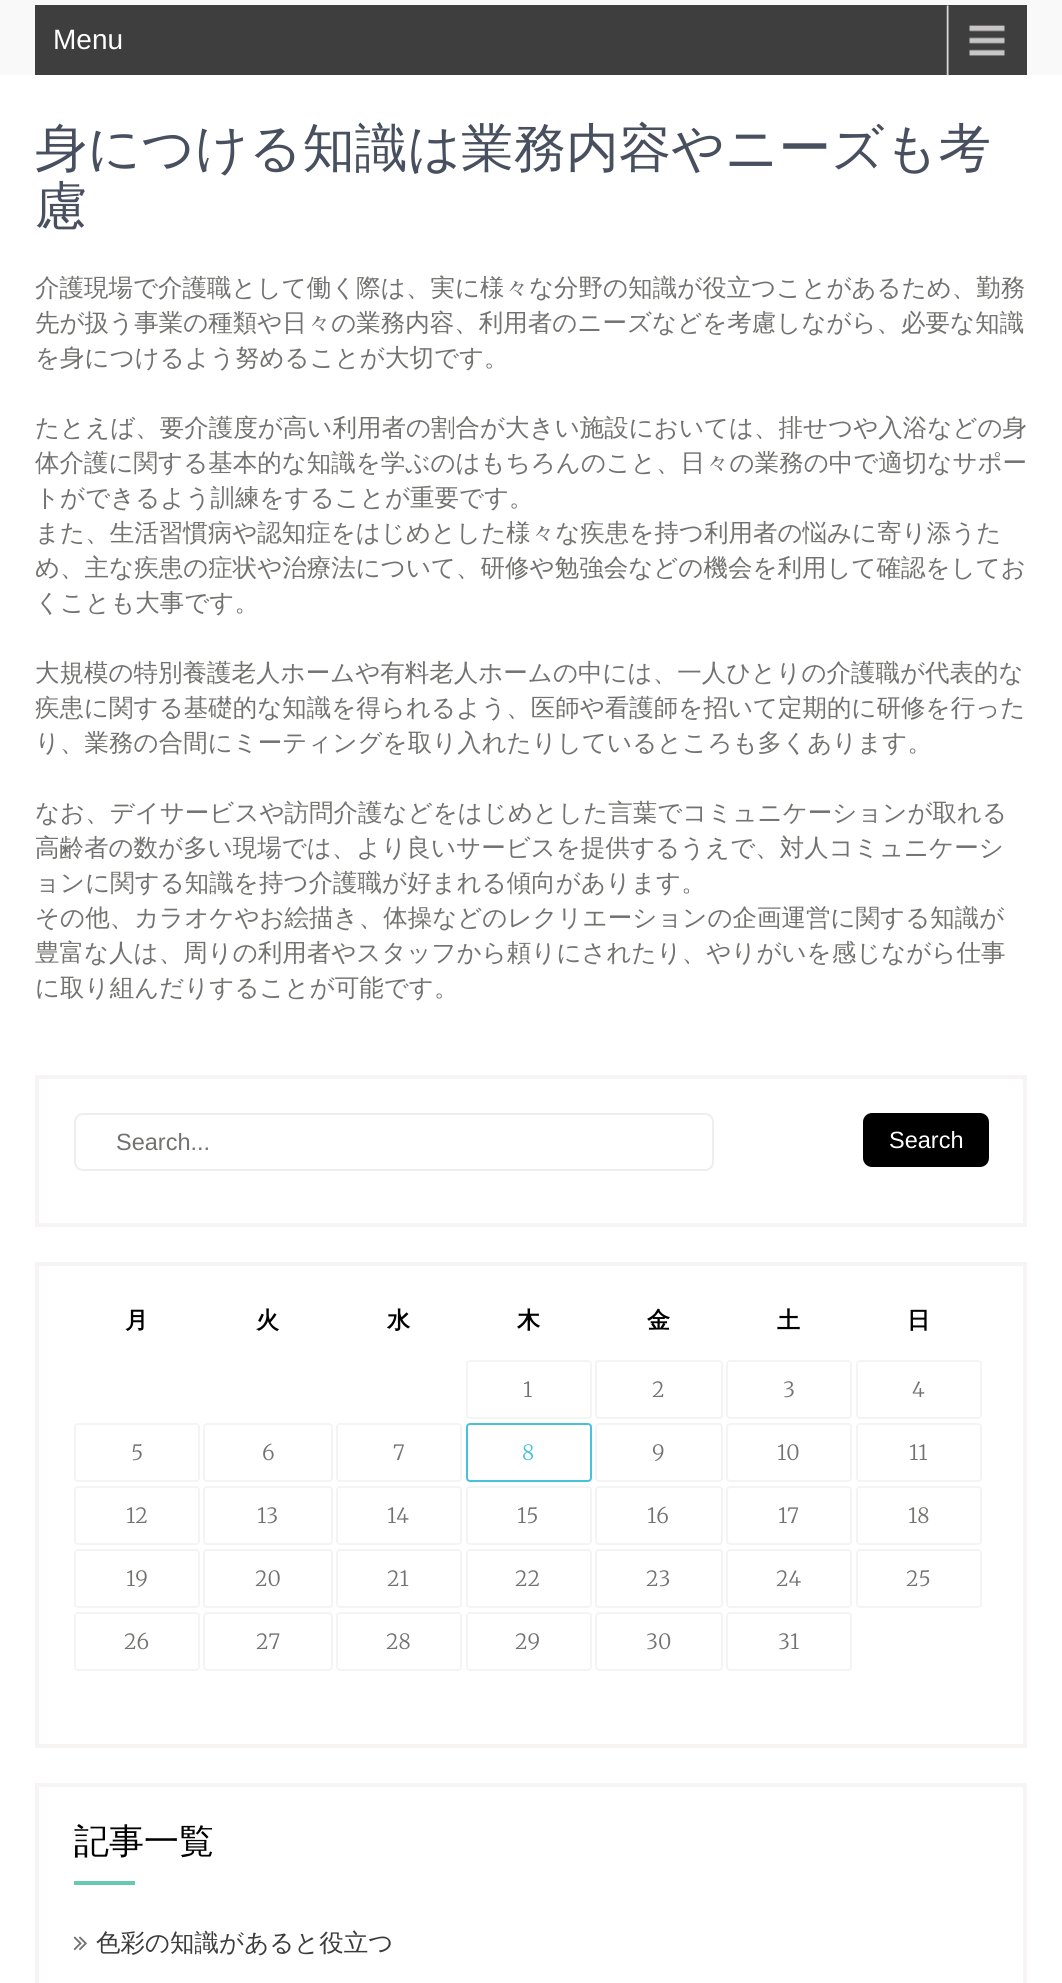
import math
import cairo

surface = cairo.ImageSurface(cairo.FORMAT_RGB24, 1062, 1983)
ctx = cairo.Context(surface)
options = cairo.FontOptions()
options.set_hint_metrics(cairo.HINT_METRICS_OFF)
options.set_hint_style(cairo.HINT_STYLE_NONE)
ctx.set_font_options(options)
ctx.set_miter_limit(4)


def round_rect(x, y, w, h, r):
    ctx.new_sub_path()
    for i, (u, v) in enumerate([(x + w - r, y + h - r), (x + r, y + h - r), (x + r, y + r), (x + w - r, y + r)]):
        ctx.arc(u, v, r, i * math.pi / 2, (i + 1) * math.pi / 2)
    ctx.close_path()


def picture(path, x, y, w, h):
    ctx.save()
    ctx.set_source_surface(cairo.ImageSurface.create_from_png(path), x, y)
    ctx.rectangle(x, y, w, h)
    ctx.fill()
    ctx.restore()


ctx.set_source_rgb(1, 1, 1)
ctx.paint()
ctx.set_source_rgb(0.976, 0.976, 0.976)
ctx.rectangle(0, 0, 1062, 75)
ctx.fill()
ctx.set_source_rgb(0.243, 0.243, 0.243)
ctx.rectangle(35, 5, 992, 70)
ctx.fill()
picture("img1.png", 946, 5, 59, 71)
ctx.select_font_face("Liberation Sans")
ctx.set_font_size(28)
ctx.set_source_rgb(1, 1, 1)
ctx.move_to(53, 49)
ctx.show_text("Menu")
ctx.select_font_face("WenQuanYi Zen Hei Medium")
ctx.set_font_size(52.5)
ctx.set_source_rgb(0.282, 0.31, 0.369)
ctx.move_to(35, 166)
ctx.show_text("身につける知識は業務内容やニーズも考")
ctx.move_to(35, 224)
ctx.show_text("慮")
ctx.set_font_size(24.5)
ctx.set_source_rgb(0.447, 0.451, 0.439)
ctx.move_to(35, 296)
ctx.show_text("介護現場で介護職として働く際は、実に様々な分野の知識が役立つことがあるため、勤務")
ctx.move_to(35, 331)
ctx.show_text("先が扱う事業の種類や日々の業務内容、利用者のニーズなどを考慮しながら、必要な知識")
ctx.move_to(35, 366)
ctx.show_text("を身につけるよう努めることが大切です。")
ctx.move_to(35, 436)
ctx.show_text("たとえば、要介護度が高い利用者の割合が大きい施設においては、排せつや入浴などの身")
ctx.move_to(35, 471)
ctx.show_text("体介護に関する基本的な知識を学ぶのはもちろんのこと、日々の業務の中で適切なサポー")
ctx.move_to(35, 506)
ctx.show_text("トができるよう訓練をすることが重要です。")
ctx.move_to(35, 541)
ctx.show_text("また、生活習慣病や認知症をはじめとした様々な疾患を持つ利用者の悩みに寄り添うた")
ctx.move_to(35, 576)
ctx.show_text("め、主な疾患の症状や治療法について、研修や勉強会などの機会を利用して確認をしてお")
ctx.move_to(35, 611)
ctx.show_text("くことも大事です。")
ctx.move_to(35, 681)
ctx.show_text("大規模の特別養護老人ホームや有料老人ホームの中には、一人ひとりの介護職が代表的な")
ctx.move_to(35, 716)
ctx.show_text("疾患に関する基礎的な知識を得られるよう、医師や看護師を招いて定期的に研修を行った")
ctx.move_to(35, 751)
ctx.show_text("り、業務の合間にミーティングを取り入れたりしているところも多くあります。")
ctx.move_to(35, 821)
ctx.show_text("なお、デイサービスや訪問介護などをはじめとした言葉でコミュニケーションが取れる")
ctx.move_to(35, 856)
ctx.show_text("高齢者の数が多い現場では、より良いサービスを提供するうえで、対人コミュニケーシ")
ctx.move_to(35, 891)
ctx.show_text("ョンに関する知識を持つ介護職が好まれる傾向があります。")
ctx.move_to(35, 926)
ctx.show_text("その他、カラオケやお絵描き、体操などのレクリエーションの企画運営に関する知識が")
ctx.move_to(35, 961)
ctx.show_text("豊富な人は、周りの利用者やスタッフから頼りにされたり、やりがいを感じながら仕事")
ctx.move_to(35, 996)
ctx.show_text("に取り組んだりすることが可能です。")
ctx.rectangle(37, 1077, 988, 148)
ctx.set_source_rgb(0.965, 0.957, 0.957)
ctx.set_line_width(4)
ctx.stroke()
round_rect(75, 1114, 638, 56, 8)
ctx.set_source_rgb(0.933, 0.933, 0.933)
ctx.set_line_width(2)
ctx.stroke()
ctx.select_font_face("Liberation Sans")
ctx.set_font_size(23.5)
ctx.set_source_rgb(0.447, 0.451, 0.439)
ctx.move_to(116, 1150)
ctx.show_text("Search...")
ctx.set_source_rgb(0, 0, 0)
round_rect(863, 1113, 126, 54, 9)
ctx.fill()
ctx.set_source_rgb(1, 1, 1)
ctx.move_to(889, 1148)
ctx.show_text("Search")
ctx.rectangle(37, 1264, 988, 482)
ctx.set_source_rgb(0.965, 0.957, 0.957)
ctx.set_line_width(4)
ctx.stroke()
ctx.select_font_face("WenQuanYi Zen Hei", cairo.FONT_SLANT_NORMAL, cairo.FONT_WEIGHT_BOLD)
ctx.set_font_size(23)
ctx.set_source_rgb(0, 0, 0)
ctx.move_to(125, 1328)
ctx.show_text("月")
ctx.move_to(256, 1328)
ctx.show_text("火")
ctx.move_to(387, 1328)
ctx.show_text("水")
ctx.move_to(517, 1328)
ctx.show_text("木")
ctx.move_to(647, 1328)
ctx.show_text("金")
ctx.move_to(777, 1328)
ctx.show_text("土")
ctx.move_to(907, 1328)
ctx.show_text("日")
round_rect(467, 1361, 124, 57, 3)
ctx.set_source_rgb(0.957, 0.957, 0.957)
ctx.set_line_width(2)
ctx.stroke()
ctx.select_font_face("Merriweather Light")
ctx.set_font_size(21)
ctx.set_source_rgb(0.447, 0.451, 0.439)
ctx.move_to(523, 1397)
ctx.show_text("1")
round_rect(596, 1361, 126, 57, 3)
ctx.set_source_rgb(0.957, 0.957, 0.957)
ctx.stroke()
ctx.set_source_rgb(0.447, 0.451, 0.439)
ctx.move_to(652, 1397)
ctx.show_text("2")
round_rect(727, 1361, 124, 57, 3)
ctx.set_source_rgb(0.957, 0.957, 0.957)
ctx.stroke()
ctx.set_source_rgb(0.447, 0.451, 0.439)
ctx.move_to(783, 1397)
ctx.show_text("3")
round_rect(857, 1361, 124, 57, 3)
ctx.set_source_rgb(0.957, 0.957, 0.957)
ctx.stroke()
ctx.set_source_rgb(0.447, 0.451, 0.439)
ctx.move_to(912, 1397)
ctx.show_text("4")
round_rect(75, 1424, 124, 57, 3)
ctx.set_source_rgb(0.957, 0.957, 0.957)
ctx.stroke()
ctx.set_source_rgb(0.447, 0.451, 0.439)
ctx.move_to(131, 1460)
ctx.show_text("5")
round_rect(204, 1424, 128, 57, 3)
ctx.set_source_rgb(0.957, 0.957, 0.957)
ctx.stroke()
ctx.set_source_rgb(0.447, 0.451, 0.439)
ctx.move_to(262, 1460)
ctx.show_text("6")
round_rect(337, 1424, 124, 57, 3)
ctx.set_source_rgb(0.957, 0.957, 0.957)
ctx.stroke()
ctx.set_source_rgb(0.447, 0.451, 0.439)
ctx.move_to(393, 1460)
ctx.show_text("7")
round_rect(467, 1424, 124, 57, 3)
ctx.set_source_rgb(0.278, 0.761, 0.863)
ctx.stroke()
ctx.move_to(522, 1460)
ctx.show_text("8")
round_rect(596, 1424, 126, 57, 3)
ctx.set_source_rgb(0.957, 0.957, 0.957)
ctx.stroke()
ctx.set_source_rgb(0.447, 0.451, 0.439)
ctx.move_to(652, 1460)
ctx.show_text("9")
round_rect(727, 1424, 124, 57, 3)
ctx.set_source_rgb(0.957, 0.957, 0.957)
ctx.stroke()
ctx.set_source_rgb(0.447, 0.451, 0.439)
ctx.move_to(777, 1460)
ctx.show_text("10")
round_rect(857, 1424, 124, 57, 3)
ctx.set_source_rgb(0.957, 0.957, 0.957)
ctx.stroke()
ctx.set_source_rgb(0.447, 0.451, 0.439)
ctx.move_to(909, 1460)
ctx.show_text("11")
round_rect(75, 1487, 124, 57, 3)
ctx.set_source_rgb(0.957, 0.957, 0.957)
ctx.stroke()
ctx.set_source_rgb(0.447, 0.451, 0.439)
ctx.move_to(126, 1523)
ctx.show_text("12")
round_rect(204, 1487, 128, 57, 3)
ctx.set_source_rgb(0.957, 0.957, 0.957)
ctx.stroke()
ctx.set_source_rgb(0.447, 0.451, 0.439)
ctx.move_to(257, 1523)
ctx.show_text("13")
round_rect(337, 1487, 124, 57, 3)
ctx.set_source_rgb(0.957, 0.957, 0.957)
ctx.stroke()
ctx.set_source_rgb(0.447, 0.451, 0.439)
ctx.move_to(387, 1523)
ctx.show_text("14")
round_rect(467, 1487, 124, 57, 3)
ctx.set_source_rgb(0.957, 0.957, 0.957)
ctx.stroke()
ctx.set_source_rgb(0.447, 0.451, 0.439)
ctx.move_to(517, 1523)
ctx.show_text("15")
round_rect(596, 1487, 126, 57, 3)
ctx.set_source_rgb(0.957, 0.957, 0.957)
ctx.stroke()
ctx.set_source_rgb(0.447, 0.451, 0.439)
ctx.move_to(647, 1523)
ctx.show_text("16")
round_rect(727, 1487, 124, 57, 3)
ctx.set_source_rgb(0.957, 0.957, 0.957)
ctx.stroke()
ctx.set_source_rgb(0.447, 0.451, 0.439)
ctx.move_to(778, 1523)
ctx.show_text("17")
round_rect(857, 1487, 124, 57, 3)
ctx.set_source_rgb(0.957, 0.957, 0.957)
ctx.stroke()
ctx.set_source_rgb(0.447, 0.451, 0.439)
ctx.move_to(908, 1523)
ctx.show_text("18")
round_rect(75, 1550, 124, 57, 3)
ctx.set_source_rgb(0.957, 0.957, 0.957)
ctx.stroke()
ctx.set_source_rgb(0.447, 0.451, 0.439)
ctx.move_to(126, 1586)
ctx.show_text("19")
round_rect(204, 1550, 128, 57, 3)
ctx.set_source_rgb(0.957, 0.957, 0.957)
ctx.stroke()
ctx.set_source_rgb(0.447, 0.451, 0.439)
ctx.move_to(255, 1586)
ctx.show_text("20")
round_rect(337, 1550, 124, 57, 3)
ctx.set_source_rgb(0.957, 0.957, 0.957)
ctx.stroke()
ctx.set_source_rgb(0.447, 0.451, 0.439)
ctx.move_to(387, 1586)
ctx.show_text("21")
round_rect(467, 1550, 124, 57, 3)
ctx.set_source_rgb(0.957, 0.957, 0.957)
ctx.stroke()
ctx.set_source_rgb(0.447, 0.451, 0.439)
ctx.move_to(515, 1586)
ctx.show_text("22")
round_rect(596, 1550, 126, 57, 3)
ctx.set_source_rgb(0.957, 0.957, 0.957)
ctx.stroke()
ctx.set_source_rgb(0.447, 0.451, 0.439)
ctx.move_to(646, 1586)
ctx.show_text("23")
round_rect(727, 1550, 124, 57, 3)
ctx.set_source_rgb(0.957, 0.957, 0.957)
ctx.stroke()
ctx.set_source_rgb(0.447, 0.451, 0.439)
ctx.move_to(776, 1586)
ctx.show_text("24")
round_rect(857, 1550, 124, 57, 3)
ctx.set_source_rgb(0.957, 0.957, 0.957)
ctx.stroke()
ctx.set_source_rgb(0.447, 0.451, 0.439)
ctx.move_to(906, 1586)
ctx.show_text("25")
round_rect(75, 1613, 124, 57, 3)
ctx.set_source_rgb(0.957, 0.957, 0.957)
ctx.stroke()
ctx.set_source_rgb(0.447, 0.451, 0.439)
ctx.move_to(124, 1649)
ctx.show_text("26")
round_rect(204, 1613, 128, 57, 3)
ctx.set_source_rgb(0.957, 0.957, 0.957)
ctx.stroke()
ctx.set_source_rgb(0.447, 0.451, 0.439)
ctx.move_to(256, 1649)
ctx.show_text("27")
round_rect(337, 1613, 124, 57, 3)
ctx.set_source_rgb(0.957, 0.957, 0.957)
ctx.stroke()
ctx.set_source_rgb(0.447, 0.451, 0.439)
ctx.move_to(386, 1649)
ctx.show_text("28")
round_rect(467, 1613, 124, 57, 3)
ctx.set_source_rgb(0.957, 0.957, 0.957)
ctx.stroke()
ctx.set_source_rgb(0.447, 0.451, 0.439)
ctx.move_to(515, 1649)
ctx.show_text("29")
round_rect(596, 1613, 126, 57, 3)
ctx.set_source_rgb(0.957, 0.957, 0.957)
ctx.stroke()
ctx.set_source_rgb(0.447, 0.451, 0.439)
ctx.move_to(646, 1649)
ctx.show_text("30")
round_rect(727, 1613, 124, 57, 3)
ctx.set_source_rgb(0.957, 0.957, 0.957)
ctx.stroke()
ctx.set_source_rgb(0.447, 0.451, 0.439)
ctx.move_to(778, 1649)
ctx.show_text("31")
ctx.rectangle(37, 1785, 988, 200)
ctx.set_source_rgb(0.965, 0.957, 0.957)
ctx.set_line_width(4)
ctx.stroke()
ctx.select_font_face("WenQuanYi Zen Hei Medium")
ctx.set_font_size(35)
ctx.set_source_rgb(0, 0, 0)
ctx.move_to(74, 1853)
ctx.show_text("記事一覧")
ctx.set_source_rgb(0.408, 0.788, 0.69)
ctx.rectangle(74, 1881, 61, 4)
ctx.fill()
picture("img2.png", 73, 1936, 14, 15)
ctx.set_font_size(24.5)
ctx.set_source_rgb(0.231, 0.231, 0.231)
ctx.move_to(96, 1951)
ctx.show_text("色彩の知識があると役立つ")
surface.write_to_png("page.png")
